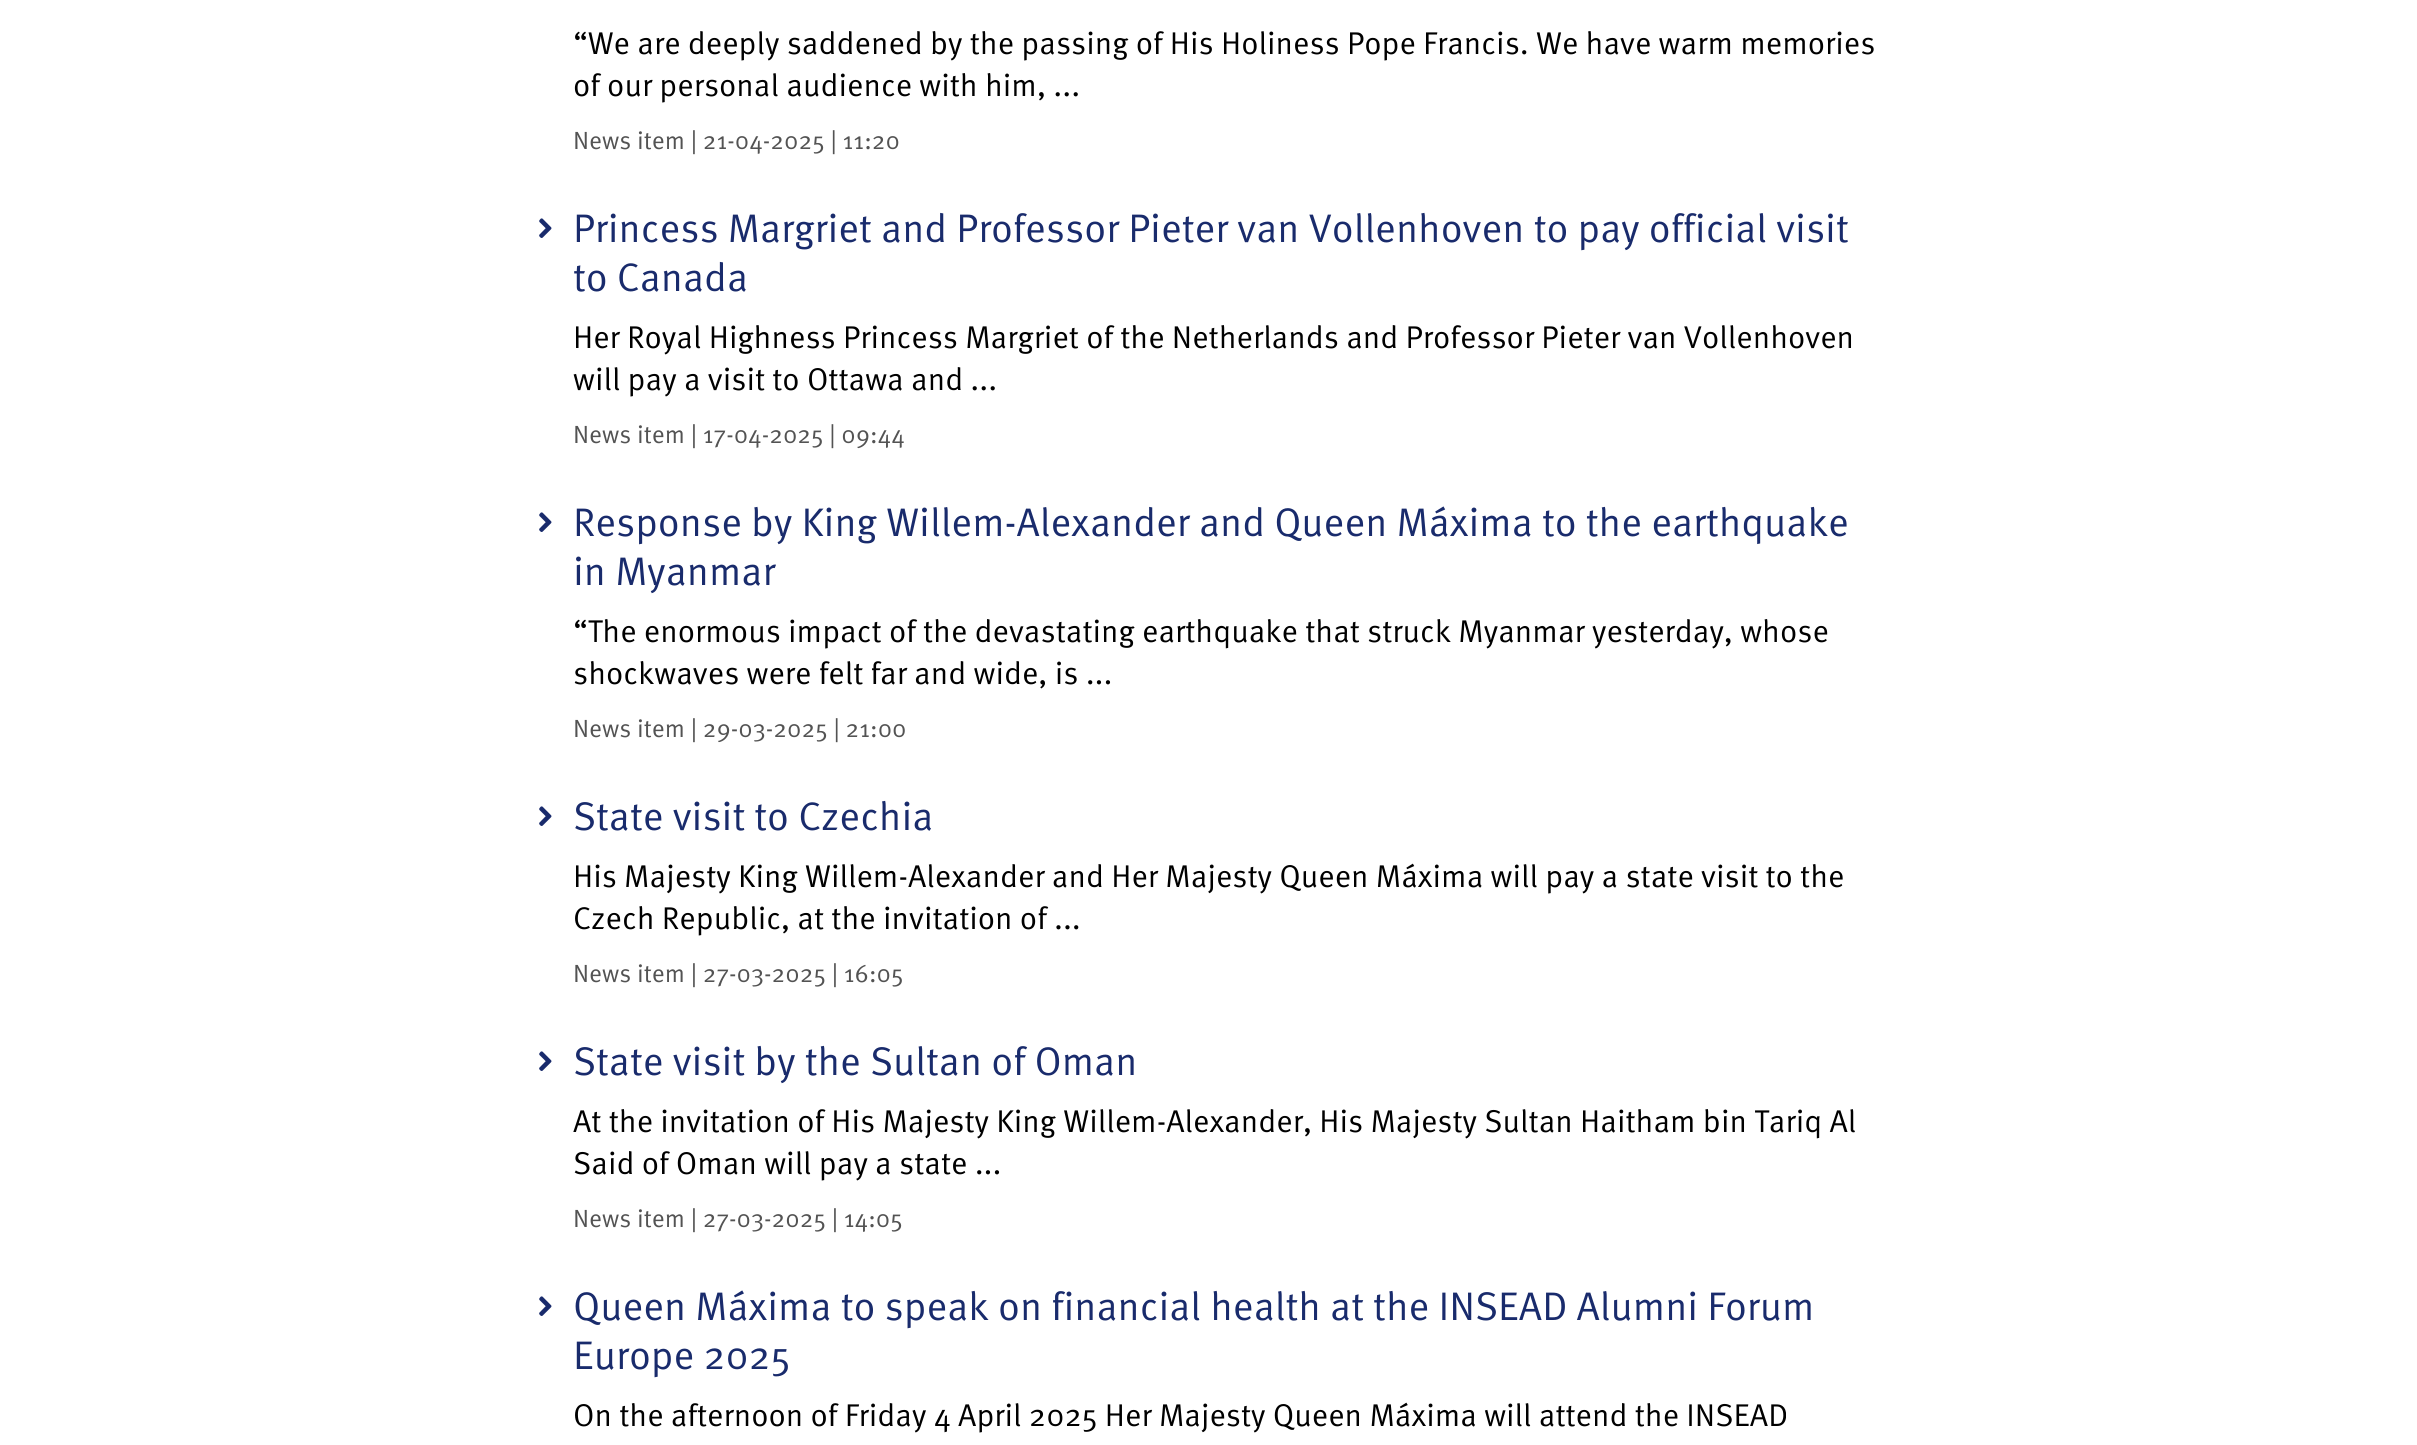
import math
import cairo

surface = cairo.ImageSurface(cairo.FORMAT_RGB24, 2417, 1445)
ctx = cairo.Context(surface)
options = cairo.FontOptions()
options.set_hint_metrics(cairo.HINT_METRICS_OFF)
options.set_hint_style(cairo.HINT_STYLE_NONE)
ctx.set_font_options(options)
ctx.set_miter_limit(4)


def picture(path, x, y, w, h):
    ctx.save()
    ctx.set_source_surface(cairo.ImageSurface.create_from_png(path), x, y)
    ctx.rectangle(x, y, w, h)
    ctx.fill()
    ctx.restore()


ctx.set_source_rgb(1, 1, 1)
ctx.paint()
ctx.select_font_face("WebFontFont")
ctx.set_font_size(31.5)
ctx.set_source_rgb(0, 0, 0)
ctx.move_to(573, 54)
ctx.show_text("“We are deeply saddened by the passing of His Holiness Pope Francis. We have warm memories")
ctx.move_to(573, 96)
ctx.show_text("of our personal audience with him, ...")
ctx.set_font_size(24.9)
ctx.set_source_rgb(0.325, 0.325, 0.325)
ctx.move_to(573, 149)
ctx.show_text("News item | 21-04-2025 | 11:20")
picture("img1.png", 539, 218, 13, 20)
ctx.set_font_size(39.9)
ctx.set_source_rgb(0.098, 0.169, 0.424)
ctx.move_to(573, 242)
ctx.show_text("Princess Margriet and Professor Pieter van Vollenhoven to pay official visit")
ctx.move_to(573, 291)
ctx.show_text("to Canada")
ctx.set_font_size(31.5)
ctx.set_source_rgb(0, 0, 0)
ctx.move_to(573, 348)
ctx.show_text("Her Royal Highness Princess Margriet of the Netherlands and Professor Pieter van Vollenhoven")
ctx.move_to(573, 390)
ctx.show_text("will pay a visit to Ottawa and ...")
ctx.set_font_size(24.9)
ctx.set_source_rgb(0.325, 0.325, 0.325)
ctx.move_to(573, 443)
ctx.show_text("News item | 17-04-2025 | 09:44")
picture("img1.png", 539, 512, 13, 20)
ctx.set_font_size(39.9)
ctx.set_source_rgb(0.098, 0.169, 0.424)
ctx.move_to(573, 536)
ctx.show_text("Response by King Willem-Alexander and Queen Máxima to the earthquake")
ctx.move_to(573, 585)
ctx.show_text("in Myanmar")
ctx.set_font_size(31.5)
ctx.set_source_rgb(0, 0, 0)
ctx.move_to(573, 642)
ctx.show_text("“The enormous impact of the devastating earthquake that struck Myanmar yesterday, whose")
ctx.move_to(573, 684)
ctx.show_text("shockwaves were felt far and wide, is ...")
ctx.set_font_size(24.9)
ctx.set_source_rgb(0.325, 0.325, 0.325)
ctx.move_to(573, 737)
ctx.show_text("News item | 29-03-2025 | 21:00")
picture("img1.png", 539, 806, 13, 20)
ctx.set_font_size(39.9)
ctx.set_source_rgb(0.098, 0.169, 0.424)
ctx.move_to(573, 830)
ctx.show_text("State visit to Czechia")
ctx.set_font_size(31.5)
ctx.set_source_rgb(0, 0, 0)
ctx.move_to(573, 887)
ctx.show_text("His Majesty King Willem-Alexander and Her Majesty Queen Máxima will pay a state visit to the")
ctx.move_to(573, 929)
ctx.show_text("Czech Republic, at the invitation of ...")
ctx.set_font_size(24.9)
ctx.set_source_rgb(0.325, 0.325, 0.325)
ctx.move_to(573, 982)
ctx.show_text("News item | 27-03-2025 | 16:05")
picture("img1.png", 539, 1051, 13, 20)
ctx.set_font_size(39.9)
ctx.set_source_rgb(0.098, 0.169, 0.424)
ctx.move_to(573, 1075)
ctx.show_text("State visit by the Sultan of Oman")
ctx.set_font_size(31.5)
ctx.set_source_rgb(0, 0, 0)
ctx.move_to(573, 1132)
ctx.show_text("At the invitation of His Majesty King Willem-Alexander, His Majesty Sultan Haitham bin Tariq Al")
ctx.move_to(573, 1174)
ctx.show_text("Said of Oman will pay a state ...")
ctx.set_font_size(24.9)
ctx.set_source_rgb(0.325, 0.325, 0.325)
ctx.move_to(573, 1227)
ctx.show_text("News item | 27-03-2025 | 14:05")
picture("img1.png", 539, 1296, 13, 20)
ctx.set_font_size(39.9)
ctx.set_source_rgb(0.098, 0.169, 0.424)
ctx.move_to(573, 1320)
ctx.show_text("Queen Máxima to speak on financial health at the INSEAD Alumni Forum")
ctx.move_to(573, 1369)
ctx.show_text("Europe 2025")
ctx.set_font_size(31.5)
ctx.set_source_rgb(0, 0, 0)
ctx.move_to(573, 1426)
ctx.show_text("On the afternoon of Friday 4 April 2025 Her Majesty Queen Máxima will attend the INSEAD")
surface.write_to_png("page.png")
